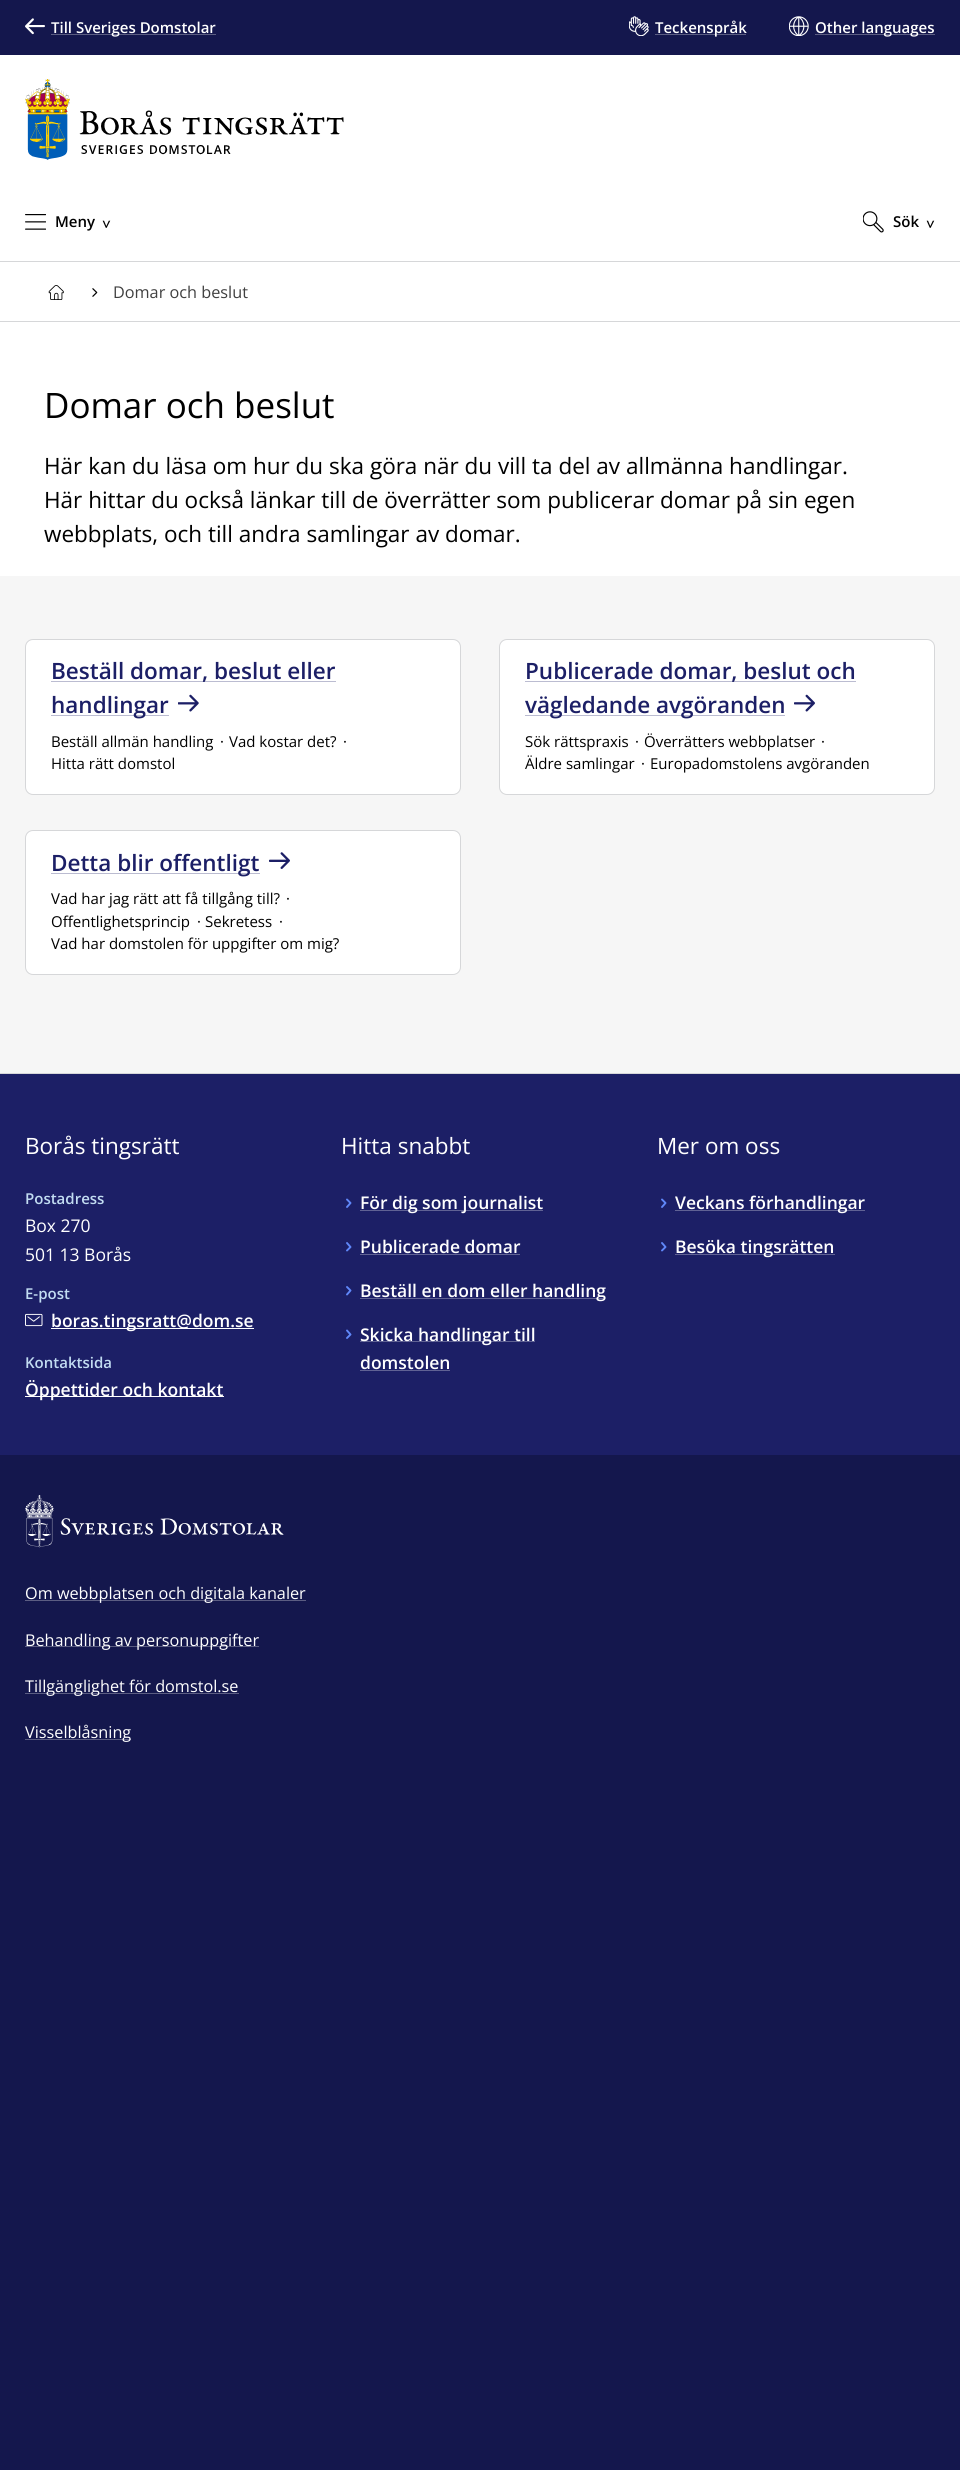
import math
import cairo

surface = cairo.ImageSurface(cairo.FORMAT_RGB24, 960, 2470)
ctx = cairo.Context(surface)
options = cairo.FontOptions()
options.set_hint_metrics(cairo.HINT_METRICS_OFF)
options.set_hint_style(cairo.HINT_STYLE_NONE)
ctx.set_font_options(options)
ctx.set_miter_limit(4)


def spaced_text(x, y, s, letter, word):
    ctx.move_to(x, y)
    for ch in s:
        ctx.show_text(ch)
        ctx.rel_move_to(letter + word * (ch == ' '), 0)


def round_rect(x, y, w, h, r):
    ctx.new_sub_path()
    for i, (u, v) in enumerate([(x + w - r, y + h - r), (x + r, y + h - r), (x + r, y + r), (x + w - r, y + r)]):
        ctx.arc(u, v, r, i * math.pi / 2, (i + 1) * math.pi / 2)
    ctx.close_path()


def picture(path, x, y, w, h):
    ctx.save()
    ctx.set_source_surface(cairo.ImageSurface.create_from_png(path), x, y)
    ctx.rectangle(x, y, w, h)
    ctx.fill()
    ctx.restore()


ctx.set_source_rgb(0.082, 0.09, 0.302)
ctx.paint()
ctx.set_source_rgb(1, 1, 1)
ctx.rectangle(0, 55, 960, 521)
ctx.fill()
ctx.set_source_rgb(0.839, 0.843, 0.851)
ctx.rectangle(0, 261, 960, 1)
ctx.fill()
picture("img1.png", 25, 18, 20, 17)
ctx.set_source_rgb(0.357, 0.365, 0.51)
ctx.rectangle(51, 34, 165, 1)
ctx.fill()
ctx.select_font_face("Open Sans SemiBold")
ctx.set_font_size(15)
ctx.set_source_rgb(1, 1, 1)
ctx.move_to(51, 33)
ctx.show_text("Till Sveriges Domstolar")
picture("img2.png", 629, 16, 20, 20)
ctx.set_source_rgb(0.357, 0.365, 0.51)
ctx.rectangle(655, 34, 91, 1)
ctx.fill()
ctx.set_source_rgb(1, 1, 1)
ctx.move_to(655, 33)
ctx.show_text("Teckenspråk")
picture("img3.png", 789, 16, 20, 20)
ctx.set_source_rgb(0.357, 0.365, 0.51)
ctx.rectangle(815, 34, 120, 1)
ctx.fill()
ctx.set_source_rgb(1, 1, 1)
ctx.move_to(815, 33)
ctx.show_text("Other languages")
picture("img4.png", 25, 79, 319, 81)
picture("img5.png", 25, 214, 21, 16)
ctx.set_source_rgb(0, 0, 0)
ctx.move_to(55, 227)
ctx.show_text("Meny")
ctx.save()
ctx.translate(101, 220)
ctx.rotate(90 * math.pi / 180)
spaced_text(0, 0, ">", -3, 0)
ctx.restore()
picture("img6.png", 863, 211, 21, 22)
ctx.move_to(893, 227)
ctx.show_text("Sök")
ctx.save()
ctx.translate(925, 220)
ctx.rotate(90 * math.pi / 180)
spaced_text(0, 0, ">", -3, 0)
ctx.restore()
ctx.set_source_rgb(0.839, 0.843, 0.851)
ctx.rectangle(0, 321, 960, 1)
ctx.fill()
picture("img7.png", 48, 285, 16, 15)
picture("img8.png", 92, 288, 6, 9)
ctx.select_font_face("Open Sans")
ctx.set_font_size(16.25)
ctx.set_source_rgb(0.251, 0.251, 0.251)
ctx.move_to(113, 298)
ctx.show_text("Domar och beslut")
ctx.set_font_size(35)
ctx.set_source_rgb(0, 0, 0)
ctx.move_to(44, 418)
ctx.show_text("Domar och beslut")
ctx.set_font_size(22.5)
ctx.move_to(44, 474)
ctx.show_text("Här kan du läsa om hur du ska göra när du vill ta del av allmänna handlingar.")
ctx.move_to(44, 508)
ctx.show_text("Här hittar du också länkar till de överrätter som publicerar domar på sin egen")
ctx.move_to(44, 542)
ctx.show_text("webbplats, och till andra samlingar av domar.")
ctx.set_source_rgb(0.961, 0.961, 0.961)
ctx.rectangle(0, 576, 960, 497)
ctx.fill()
ctx.set_source_rgb(1, 1, 1)
round_rect(26, 640, 434, 154, 6)
ctx.fill()
round_rect(25.5, 639.5, 435, 155, 7.5)
ctx.set_source_rgb(0.839, 0.843, 0.851)
ctx.set_line_width(1)
ctx.stroke()
ctx.set_source_rgb(0.733, 0.737, 0.82)
ctx.rectangle(51, 681, 285, 1)
ctx.fill()
ctx.select_font_face("Open Sans SemiBold")
ctx.set_source_rgb(0.11, 0.122, 0.4)
ctx.move_to(51, 679)
ctx.show_text("Beställ domar, beslut eller")
ctx.set_source_rgb(0.733, 0.737, 0.82)
ctx.rectangle(51, 715, 118, 1)
ctx.fill()
ctx.set_source_rgb(0.11, 0.122, 0.4)
ctx.move_to(51, 713)
ctx.show_text("handlingar")
picture("img9.png", 178, 694, 21, 18)
ctx.select_font_face("Open Sans")
ctx.set_font_size(15)
ctx.set_source_rgb(0, 0, 0)
ctx.move_to(51, 747)
ctx.show_text("Beställ allmän handling")
ctx.move_to(220, 747)
ctx.show_text("·")
ctx.move_to(229, 747)
ctx.show_text("Vad kostar det?")
ctx.move_to(343, 747)
ctx.show_text("·")
ctx.move_to(51, 769)
ctx.show_text("Hitta rätt domstol")
ctx.set_source_rgb(1, 1, 1)
round_rect(500, 640, 434, 154, 6)
ctx.fill()
round_rect(499.5, 639.5, 435, 155, 7.5)
ctx.set_source_rgb(0.839, 0.843, 0.851)
ctx.stroke()
ctx.set_source_rgb(0.733, 0.737, 0.82)
ctx.rectangle(525, 681, 331, 1)
ctx.fill()
ctx.select_font_face("Open Sans SemiBold")
ctx.set_font_size(22.5)
ctx.set_source_rgb(0.11, 0.122, 0.4)
ctx.move_to(525, 679)
ctx.show_text("Publicerade domar, beslut och")
ctx.set_source_rgb(0.733, 0.737, 0.82)
ctx.rectangle(525, 715, 260, 1)
ctx.fill()
ctx.set_source_rgb(0.11, 0.122, 0.4)
ctx.move_to(525, 713)
ctx.show_text("vägledande avgöranden")
picture("img10.png", 794, 694, 21, 18)
ctx.select_font_face("Open Sans")
ctx.set_font_size(15)
ctx.set_source_rgb(0, 0, 0)
ctx.move_to(525, 747)
ctx.show_text("Sök rättspraxis")
ctx.move_to(635, 747)
ctx.show_text("·")
ctx.move_to(644, 747)
ctx.show_text("Överrätters webbplatser")
ctx.move_to(821, 747)
ctx.show_text("·")
ctx.move_to(525, 769)
ctx.show_text("Äldre samlingar")
ctx.move_to(641, 769)
ctx.show_text("·")
ctx.move_to(650, 769)
ctx.show_text("Europadomstolens avgöranden")
ctx.set_source_rgb(1, 1, 1)
round_rect(26, 831, 434, 143, 6)
ctx.fill()
round_rect(25.5, 830.5, 435, 144, 7.5)
ctx.set_source_rgb(0.839, 0.843, 0.851)
ctx.stroke()
ctx.set_source_rgb(0.733, 0.737, 0.82)
ctx.rectangle(51, 873, 209, 1)
ctx.fill()
ctx.select_font_face("Open Sans SemiBold")
ctx.set_font_size(22.5)
ctx.set_source_rgb(0.11, 0.122, 0.4)
ctx.move_to(51, 871)
ctx.show_text("Detta blir offentligt")
picture("img11.png", 269, 852, 21, 17)
ctx.select_font_face("Open Sans")
ctx.set_font_size(15)
ctx.set_source_rgb(0, 0, 0)
ctx.move_to(51, 904)
ctx.show_text("Vad har jag rätt att få tillgång till?")
ctx.move_to(286, 904)
ctx.show_text("·")
ctx.move_to(51, 927)
ctx.show_text("Offentlighetsprincip")
ctx.move_to(197, 927)
ctx.show_text("·")
ctx.move_to(205, 927)
ctx.show_text("Sekretess")
ctx.move_to(279, 927)
ctx.show_text("·")
ctx.move_to(51, 949)
ctx.show_text("Vad har domstolen för uppgifter om mig?")
ctx.set_source_rgb(0.11, 0.122, 0.4)
ctx.rectangle(0, 1074, 960, 381)
ctx.fill()
ctx.set_source_rgb(0.839, 0.843, 0.851)
ctx.rectangle(0, 1073, 960, 1)
ctx.fill()
ctx.set_font_size(22.5)
ctx.set_source_rgb(1, 1, 1)
ctx.move_to(25, 1154)
ctx.show_text("Borås tingsrätt")
ctx.select_font_face("Open Sans SemiBold")
ctx.set_font_size(15)
ctx.set_source_rgb(0.761, 0.863, 0.949)
ctx.move_to(25, 1204)
ctx.show_text("Postadress")
ctx.select_font_face("Open Sans")
ctx.set_font_size(17.5)
ctx.set_source_rgb(1, 1, 1)
ctx.move_to(25, 1232)
ctx.show_text("Box 270")
ctx.move_to(25, 1261)
ctx.show_text("501 13 Borås")
ctx.select_font_face("Open Sans SemiBold")
ctx.set_font_size(15)
ctx.set_source_rgb(0.761, 0.863, 0.949)
ctx.move_to(25, 1299)
ctx.show_text("E-post")
picture("img12.png", 25, 1313, 18, 14)
ctx.set_source_rgb(1, 1, 1)
ctx.rectangle(51, 1328, 203, 1)
ctx.fill()
ctx.set_font_size(17.5)
ctx.move_to(51, 1327)
ctx.show_text("boras.tingsratt@dom.se")
ctx.set_font_size(15)
ctx.set_source_rgb(0.761, 0.863, 0.949)
ctx.move_to(25, 1368)
ctx.show_text("Kontaktsida")
ctx.set_source_rgb(1, 1, 1)
ctx.rectangle(25, 1396, 199, 1)
ctx.fill()
ctx.set_font_size(17.5)
ctx.move_to(25, 1396)
ctx.show_text("Öppettider och kontakt")
ctx.select_font_face("Open Sans")
ctx.set_font_size(22.5)
ctx.move_to(341, 1154)
ctx.show_text("Hitta snabbt")
ctx.new_path()
ctx.move_to(347, 1207)
ctx.line_to(350.5, 1203)
ctx.line_to(347, 1199.5)
ctx.move_to(347, 1250.5)
ctx.line_to(350.5, 1247)
ctx.line_to(347, 1243)
ctx.set_source_rgb(0.376, 0.533, 0.98)
ctx.set_line_width(1.9)
ctx.set_line_cap(cairo.LINE_CAP_ROUND)
ctx.set_line_join(cairo.LINE_JOIN_ROUND)
ctx.stroke()
ctx.set_source_rgb(0.376, 0.384, 0.58)
ctx.rectangle(360, 1210, 183, 1)
ctx.fill()
ctx.select_font_face("Open Sans SemiBold")
ctx.set_font_size(17.5)
ctx.set_source_rgb(1, 1, 1)
ctx.move_to(360, 1209)
ctx.show_text("För dig som journalist")
ctx.move_to(360, 1253)
ctx.show_text("Publicerade domar")
ctx.set_source_rgb(0.376, 0.384, 0.58)
ctx.rectangle(360, 1254, 160, 1)
ctx.fill()
ctx.new_path()
ctx.move_to(347, 1294.5)
ctx.line_to(350.5, 1290.5)
ctx.line_to(347, 1287)
ctx.move_to(347, 1338)
ctx.line_to(350.5, 1334.5)
ctx.line_to(347, 1330.5)
ctx.set_source_rgb(0.376, 0.533, 0.98)
ctx.stroke()
ctx.set_source_rgb(0.376, 0.384, 0.58)
ctx.rectangle(360, 1298, 245, 1)
ctx.fill()
ctx.set_source_rgb(1, 1, 1)
ctx.move_to(360, 1297)
ctx.show_text("Beställ en dom eller handling")
ctx.set_source_rgb(0.376, 0.384, 0.58)
ctx.rectangle(360, 1341, 175, 1)
ctx.fill()
ctx.set_source_rgb(1, 1, 1)
ctx.move_to(360, 1341)
ctx.show_text("Skicka handlingar till")
ctx.move_to(360, 1369)
ctx.show_text("domstolen")
ctx.set_source_rgb(0.376, 0.384, 0.58)
ctx.rectangle(360, 1370, 90, 1)
ctx.fill()
ctx.select_font_face("Open Sans")
ctx.set_font_size(22.5)
ctx.set_source_rgb(1, 1, 1)
ctx.move_to(657, 1154)
ctx.show_text("Mer om oss")
ctx.new_path()
ctx.move_to(662, 1207)
ctx.line_to(665.5, 1203)
ctx.line_to(662, 1199.5)
ctx.move_to(662, 1250.5)
ctx.line_to(665.5, 1247)
ctx.line_to(662, 1243)
ctx.set_source_rgb(0.376, 0.533, 0.98)
ctx.stroke()
ctx.set_source_rgb(0.376, 0.384, 0.58)
ctx.rectangle(675, 1210, 190, 1)
ctx.fill()
ctx.select_font_face("Open Sans SemiBold")
ctx.set_font_size(17.5)
ctx.set_source_rgb(1, 1, 1)
ctx.move_to(675, 1209)
ctx.show_text("Veckans förhandlingar")
ctx.set_source_rgb(0.376, 0.384, 0.58)
ctx.rectangle(675, 1254, 160, 1)
ctx.fill()
ctx.set_source_rgb(1, 1, 1)
ctx.move_to(675, 1253)
ctx.show_text("Besöka tingsrätten")
picture("img13.png", 25, 1495, 259, 53)
ctx.set_source_rgb(0.357, 0.365, 0.51)
ctx.rectangle(25, 1600, 281, 1)
ctx.fill()
ctx.select_font_face("Open Sans")
ctx.set_font_size(16.25)
ctx.set_source_rgb(1, 1, 1)
ctx.move_to(25, 1599)
ctx.show_text("Om webbplatsen och digitala kanaler")
ctx.set_source_rgb(0.357, 0.365, 0.51)
ctx.rectangle(25, 1646, 234, 1)
ctx.fill()
ctx.set_source_rgb(1, 1, 1)
ctx.move_to(25, 1646)
ctx.show_text("Behandling av personuppgifter")
ctx.set_source_rgb(0.357, 0.365, 0.51)
ctx.rectangle(25, 1693, 214, 1)
ctx.fill()
ctx.set_source_rgb(1, 1, 1)
ctx.move_to(25, 1692)
ctx.show_text("Tillgänglighet för domstol.se")
ctx.set_source_rgb(0.357, 0.365, 0.51)
ctx.rectangle(25, 1739, 106, 1)
ctx.fill()
ctx.set_source_rgb(1, 1, 1)
ctx.move_to(25, 1738)
ctx.show_text("Visselblåsning")
surface.write_to_png("page.png")
